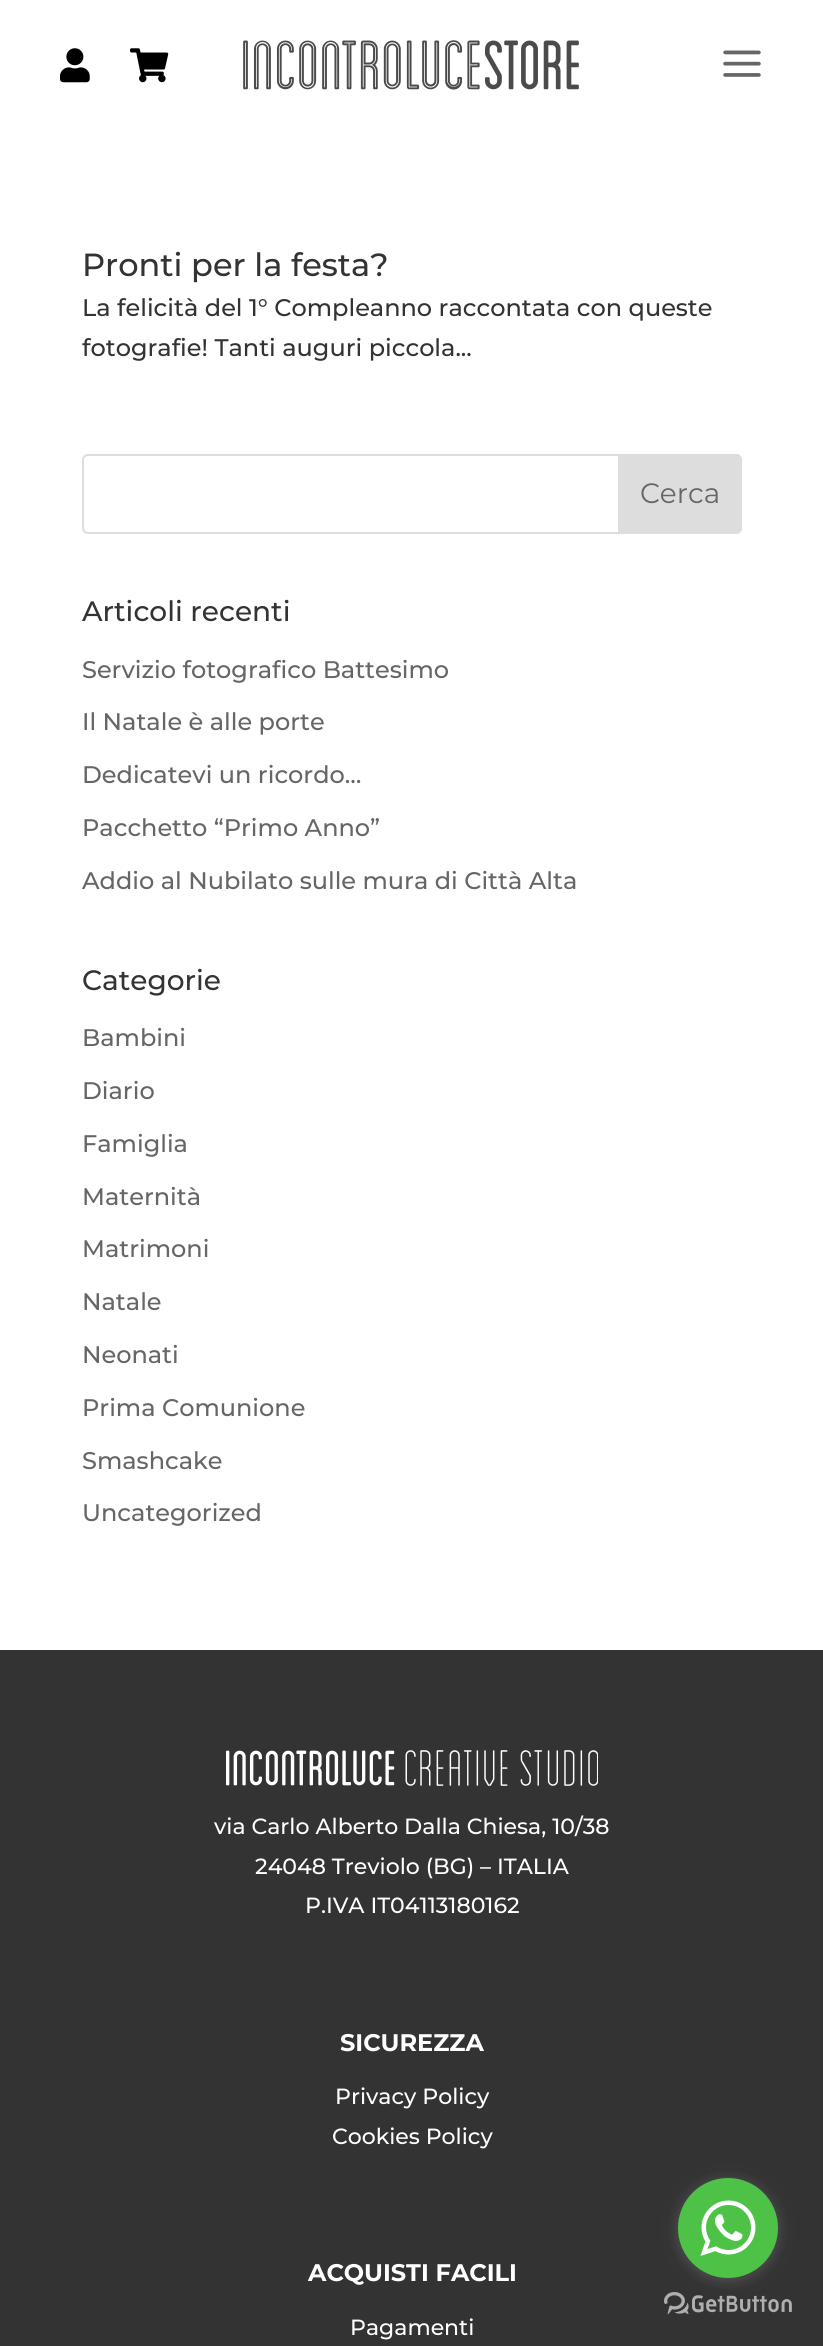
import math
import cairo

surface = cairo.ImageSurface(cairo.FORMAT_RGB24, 823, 2346)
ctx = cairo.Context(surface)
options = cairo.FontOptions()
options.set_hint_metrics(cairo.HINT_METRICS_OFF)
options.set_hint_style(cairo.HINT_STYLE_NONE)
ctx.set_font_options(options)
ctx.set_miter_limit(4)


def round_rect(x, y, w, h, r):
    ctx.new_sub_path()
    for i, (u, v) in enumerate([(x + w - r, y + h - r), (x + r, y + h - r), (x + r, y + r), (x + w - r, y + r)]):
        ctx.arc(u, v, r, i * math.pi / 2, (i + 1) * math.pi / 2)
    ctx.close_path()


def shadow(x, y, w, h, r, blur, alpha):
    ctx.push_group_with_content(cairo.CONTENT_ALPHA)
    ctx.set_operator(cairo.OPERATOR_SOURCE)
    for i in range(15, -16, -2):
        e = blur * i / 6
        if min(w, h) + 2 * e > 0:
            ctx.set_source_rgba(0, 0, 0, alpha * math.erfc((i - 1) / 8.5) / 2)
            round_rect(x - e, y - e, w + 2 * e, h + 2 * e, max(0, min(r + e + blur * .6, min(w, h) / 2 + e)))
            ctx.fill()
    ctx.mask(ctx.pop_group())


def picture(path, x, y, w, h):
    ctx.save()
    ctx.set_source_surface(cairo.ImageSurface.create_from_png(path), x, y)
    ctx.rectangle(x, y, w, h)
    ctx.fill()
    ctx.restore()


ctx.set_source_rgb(1, 1, 1)
ctx.paint()
picture("img1.png", 60, 48, 30, 35)
picture("img2.png", 130, 48, 39, 35)
picture("img3.png", 243, 40, 336, 50)
picture("img4.png", 723, 50, 38, 27)
ctx.select_font_face("Montserrat Medium")
ctx.set_font_size(32)
ctx.set_source_rgb(0.2, 0.2, 0.2)
ctx.move_to(82, 276)
ctx.show_text("Pronti per la festa?")
ctx.set_font_size(24)
ctx.move_to(82, 316)
ctx.show_text("La felicità del 1° Compleanno raccontata con queste")
ctx.move_to(82, 356)
ctx.show_text("fotografie! Tanti auguri piccola...")
round_rect(83, 455, 658, 78, 5)
ctx.set_source_rgb(0.867, 0.867, 0.867)
ctx.stroke()
ctx.new_path()
ctx.move_to(619, 455)
ctx.line_to(736, 455)
ctx.curve_to(739, 455, 741, 457, 741, 460)
ctx.line_to(741, 528)
ctx.curve_to(741, 531, 739, 533, 736, 533)
ctx.line_to(619, 533)
ctx.close_path()
ctx.fill_preserve()
ctx.stroke()
ctx.select_font_face("Montserrat")
ctx.set_font_size(28)
ctx.set_source_rgb(0.4, 0.4, 0.4)
ctx.move_to(640, 503)
ctx.show_text("Cerca")
ctx.select_font_face("Montserrat Medium")
ctx.set_source_rgb(0.2, 0.2, 0.2)
ctx.move_to(82, 621)
ctx.show_text("Articoli recenti")
ctx.set_font_size(24)
ctx.set_source_rgb(0.4, 0.4, 0.4)
ctx.move_to(82, 678)
ctx.show_text("Servizio fotografico Battesimo")
ctx.move_to(82, 730)
ctx.show_text("Il Natale è alle porte")
ctx.move_to(82, 783)
ctx.show_text("Dedicatevi un ricordo…")
ctx.move_to(82, 836)
ctx.show_text("Pacchetto “Primo Anno”")
ctx.move_to(82, 889)
ctx.show_text("Addio al Nubilato sulle mura di Città Alta")
ctx.set_font_size(28)
ctx.set_source_rgb(0.2, 0.2, 0.2)
ctx.move_to(82, 990)
ctx.show_text("Categorie")
ctx.set_font_size(24)
ctx.set_source_rgb(0.4, 0.4, 0.4)
ctx.move_to(82, 1046)
ctx.show_text("Bambini")
ctx.move_to(82, 1099)
ctx.show_text("Diario")
ctx.move_to(82, 1152)
ctx.show_text("Famiglia")
ctx.move_to(82, 1205)
ctx.show_text("Maternità")
ctx.move_to(82, 1257)
ctx.show_text("Matrimoni")
ctx.move_to(82, 1310)
ctx.show_text("Natale")
ctx.move_to(82, 1363)
ctx.show_text("Neonati")
ctx.move_to(82, 1416)
ctx.show_text("Prima Comunione")
ctx.move_to(82, 1469)
ctx.show_text("Smashcake")
ctx.move_to(82, 1521)
ctx.show_text("Uncategorized")
ctx.set_source_rgb(0.2, 0.2, 0.2)
ctx.rectangle(0, 1650, 823, 696)
ctx.fill()
picture("img5.png", 226, 1750, 372, 36)
ctx.set_font_size(22)
ctx.set_source_rgb(1, 1, 1)
ctx.move_to(214, 1834)
ctx.show_text("via Carlo Alberto Dalla Chiesa, 10/38")
ctx.move_to(255, 1874)
ctx.show_text("24048 Treviolo (BG) – ITALIA")
ctx.move_to(305, 1913)
ctx.show_text("P.IVA IT04113180162")
ctx.select_font_face("Montserrat", cairo.FONT_SLANT_NORMAL, cairo.FONT_WEIGHT_BOLD)
ctx.set_font_size(24)
ctx.move_to(340, 2051)
ctx.show_text("SICUREZZA")
ctx.select_font_face("Montserrat Medium")
ctx.set_font_size(22)
ctx.move_to(335, 2104)
ctx.show_text("Privacy Policy")
ctx.move_to(332, 2144)
ctx.show_text("Cookies Policy")
ctx.select_font_face("Montserrat", cairo.FONT_SLANT_NORMAL, cairo.FONT_WEIGHT_BOLD)
ctx.set_font_size(24)
ctx.move_to(308, 2281)
ctx.show_text("ACQUISTI FACILI")
ctx.select_font_face("Montserrat Medium")
ctx.set_font_size(22)
ctx.move_to(350, 2335)
ctx.show_text("Pagamenti")
picture("img7.png", 664, 2292, 128, 22)
ctx.set_source_rgb(0.533, 0.533, 0.533)
shadow(678, 2180, 100, 100, 50, 7, 0.4)
ctx.set_source_rgb(0.302, 0.761, 0.278)
ctx.arc(728, 2228, 50, 0, 2 * math.pi)
ctx.fill()
picture("img6.png", 700, 2200, 56, 56)
surface.write_to_png("page.png")
